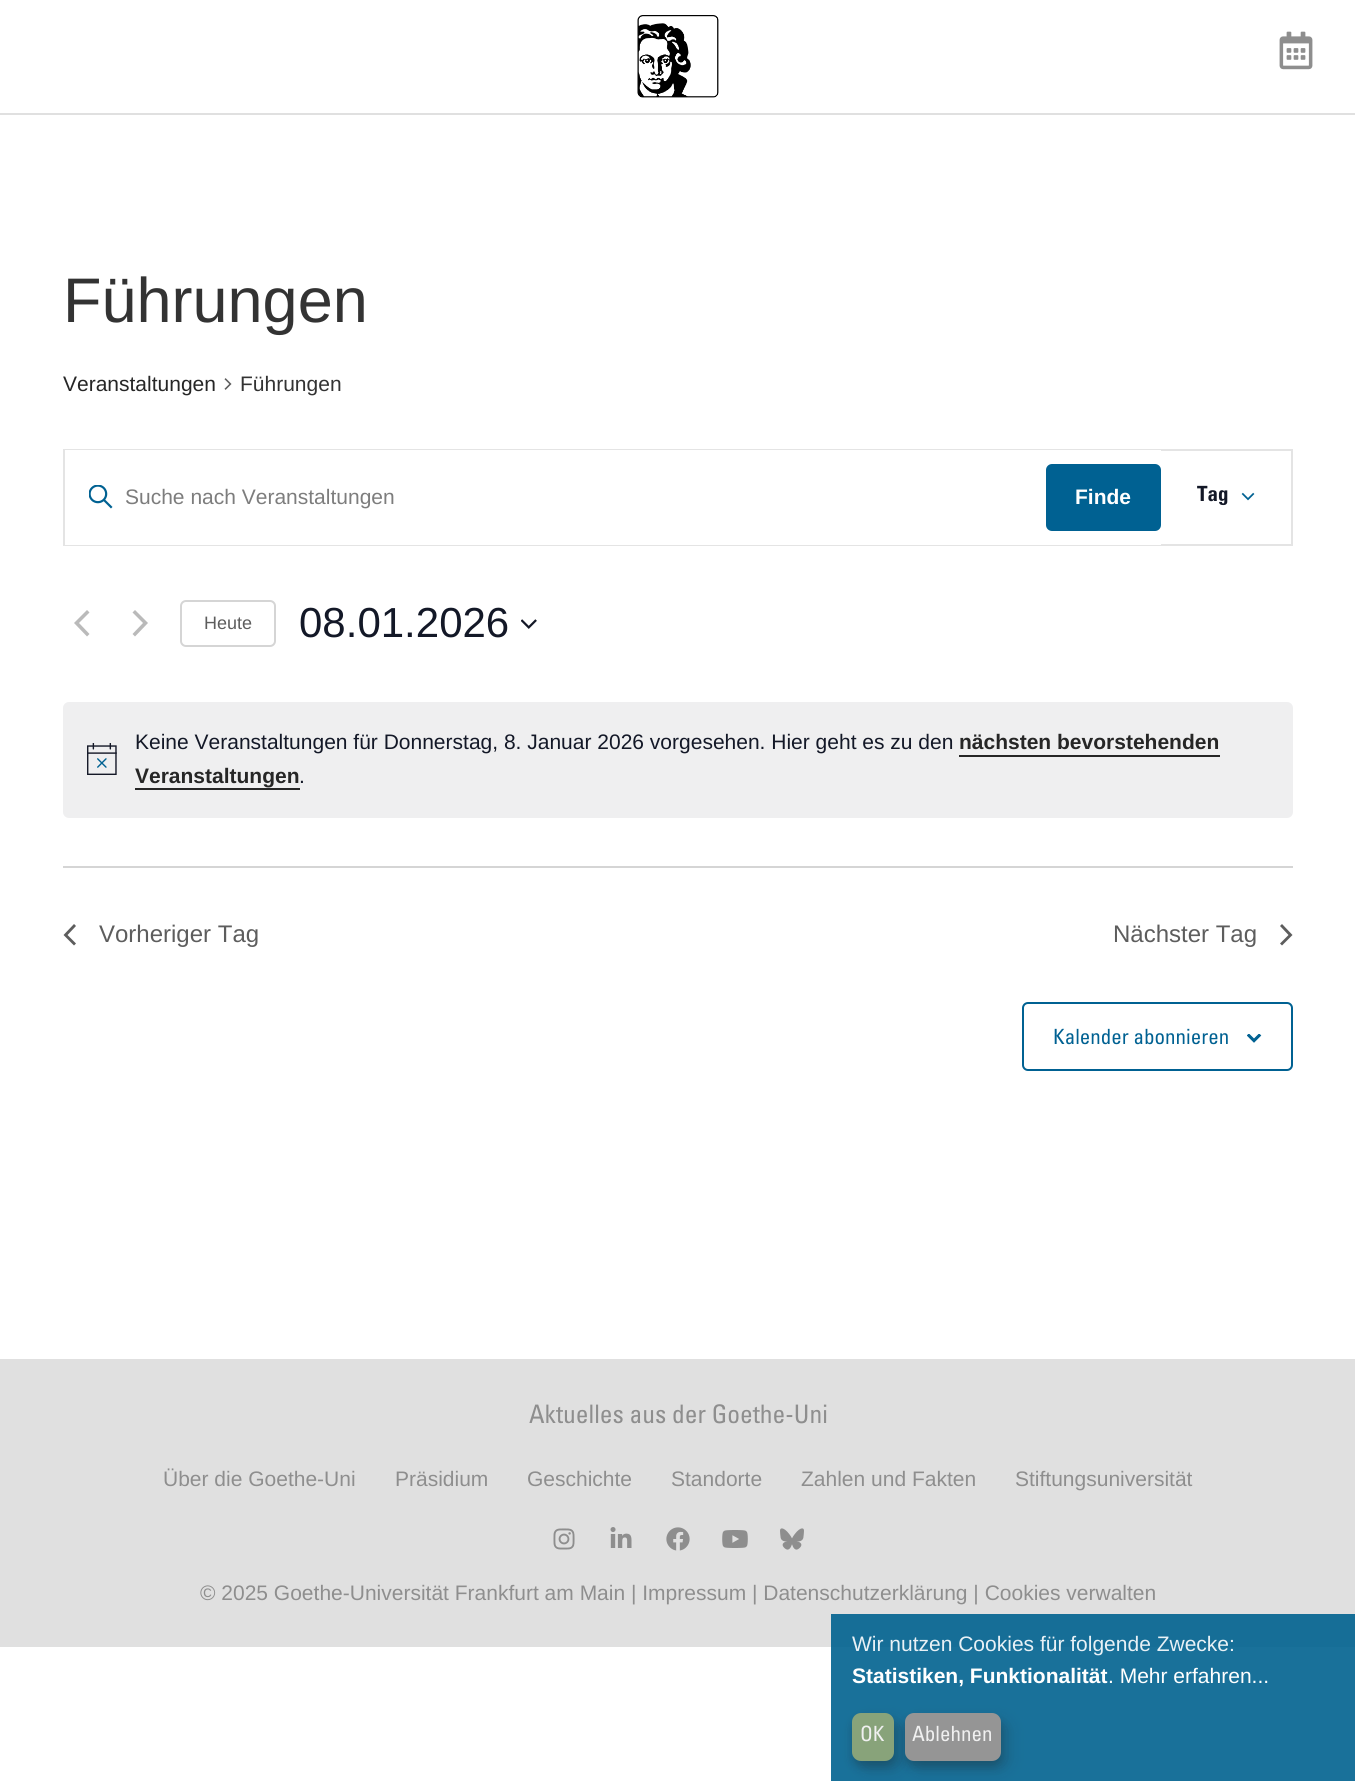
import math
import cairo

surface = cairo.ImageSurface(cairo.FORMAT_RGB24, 1355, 1781)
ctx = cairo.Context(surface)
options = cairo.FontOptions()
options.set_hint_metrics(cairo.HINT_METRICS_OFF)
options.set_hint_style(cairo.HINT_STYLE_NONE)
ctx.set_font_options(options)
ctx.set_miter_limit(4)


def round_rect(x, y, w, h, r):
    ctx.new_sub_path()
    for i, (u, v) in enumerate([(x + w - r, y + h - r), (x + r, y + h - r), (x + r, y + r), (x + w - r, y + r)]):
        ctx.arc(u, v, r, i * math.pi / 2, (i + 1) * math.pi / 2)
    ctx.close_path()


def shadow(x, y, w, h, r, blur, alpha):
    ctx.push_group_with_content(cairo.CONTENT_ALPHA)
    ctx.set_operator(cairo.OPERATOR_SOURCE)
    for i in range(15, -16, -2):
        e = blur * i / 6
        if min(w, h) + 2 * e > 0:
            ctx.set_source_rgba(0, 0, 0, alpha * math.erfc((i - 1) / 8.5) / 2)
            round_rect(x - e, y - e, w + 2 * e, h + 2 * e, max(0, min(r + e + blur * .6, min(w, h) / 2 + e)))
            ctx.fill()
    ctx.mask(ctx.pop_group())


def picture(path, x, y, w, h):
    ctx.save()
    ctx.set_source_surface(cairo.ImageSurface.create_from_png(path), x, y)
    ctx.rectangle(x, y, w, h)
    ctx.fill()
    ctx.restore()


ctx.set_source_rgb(1, 1, 1)
ctx.paint()
ctx.set_source_rgb(0.098, 0.443, 0.604)
ctx.rectangle(831, 1647, 524, 134)
ctx.fill()
ctx.set_source_rgb(0.878, 0.878, 0.878)
ctx.rectangle(0, 113, 1355, 2)
ctx.fill()
picture("img1.png", 637, 15, 82, 83)
picture("img2.png", 1279, 31, 34, 39)
ctx.select_font_face("Liberation Sans")
ctx.set_font_size(63)
ctx.set_source_rgb(0.2, 0.2, 0.2)
ctx.move_to(63, 322)
ctx.show_text("Führungen")
ctx.set_font_size(21)
ctx.set_source_rgb(0.149, 0.149, 0.149)
ctx.move_to(63, 391)
ctx.show_text("Veranstaltungen")
picture("img3.png", 224, 378, 8, 12)
ctx.set_source_rgb(0.2, 0.2, 0.2)
ctx.move_to(240, 391)
ctx.show_text("Führungen")
ctx.rectangle(64, 450, 1228, 95)
ctx.set_source_rgb(0.894, 0.894, 0.894)
ctx.stroke()
ctx.set_source_rgb(1, 1, 1)
ctx.rectangle(65, 450, 1096, 95)
ctx.fill()
picture("img4.png", 89, 485, 24, 24)
ctx.set_source_rgb(0.49, 0.49, 0.49)
ctx.move_to(125, 504)
ctx.show_text("Suche nach Veranstaltungen")
ctx.set_source_rgb(0, 0.38, 0.573)
round_rect(1046, 464, 115, 67, 6)
ctx.fill()
ctx.select_font_face("Liberation Sans", cairo.FONT_SLANT_NORMAL, cairo.FONT_WEIGHT_BOLD)
ctx.set_source_rgb(1, 1, 1)
ctx.move_to(1075, 504)
ctx.show_text("Finde")
ctx.select_font_face("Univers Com", cairo.FONT_SLANT_NORMAL, cairo.FONT_WEIGHT_BOLD)
ctx.set_source_rgb(0.078, 0.094, 0.153)
ctx.move_to(1197, 501)
ctx.show_text("Tag")
picture("img5.png", 1241, 492, 14, 9)
ctx.set_source_rgb(0.729, 0.729, 0.729)
ctx.new_path()
ctx.move_to(89.5, 634)
ctx.line_to(87, 636.5)
ctx.line_to(74, 623)
ctx.line_to(87, 610)
ctx.line_to(89.5, 612.5)
ctx.line_to(79, 623)
ctx.close_path()
ctx.fill()
ctx.new_path()
ctx.move_to(132.5, 612.5)
ctx.line_to(135, 610)
ctx.line_to(148, 623)
ctx.line_to(135, 636.5)
ctx.line_to(132.5, 634)
ctx.line_to(143, 623)
ctx.close_path()
ctx.fill()
round_rect(181, 601, 94, 45, 5)
ctx.set_source_rgb(0.835, 0.835, 0.835)
ctx.stroke()
ctx.select_font_face("Liberation Sans")
ctx.set_font_size(18)
ctx.set_source_rgb(0.365, 0.365, 0.365)
ctx.move_to(204, 629)
ctx.show_text("Heute")
ctx.set_font_size(42)
ctx.set_source_rgb(0.078, 0.094, 0.153)
ctx.move_to(299, 637)
ctx.show_text("08.01.2026")
picture("img6.png", 521, 619, 16, 10)
ctx.set_source_rgb(0.937, 0.937, 0.941)
round_rect(63, 702, 1230, 116, 6)
ctx.fill()
picture("img7.png", 87, 743, 30, 32)
ctx.set_font_size(21)
ctx.set_source_rgb(0.078, 0.094, 0.153)
ctx.move_to(135, 749)
ctx.show_text("Keine Veranstaltungen für Donnerstag, 8. Januar 2026 vorgesehen. Hier geht es zu den")
ctx.select_font_face("Liberation Sans", cairo.FONT_SLANT_NORMAL, cairo.FONT_WEIGHT_BOLD)
ctx.set_source_rgb(0.149, 0.149, 0.149)
ctx.move_to(959, 749)
ctx.show_text("nächsten bevorstehenden")
ctx.rectangle(959, 755, 261, 2)
ctx.fill()
ctx.move_to(135, 783)
ctx.show_text("Veranstaltungen")
ctx.rectangle(135, 788, 165, 2)
ctx.fill()
ctx.select_font_face("Liberation Sans")
ctx.set_source_rgb(0.078, 0.094, 0.153)
ctx.move_to(299, 783)
ctx.show_text(".")
ctx.set_source_rgb(0.835, 0.835, 0.835)
ctx.rectangle(63, 866, 1230, 2)
ctx.fill()
ctx.set_source_rgb(0.365, 0.365, 0.365)
ctx.new_path()
ctx.move_to(76, 943.5)
ctx.line_to(74, 945.5)
ctx.line_to(63.5, 935)
ctx.line_to(74, 924)
ctx.line_to(76, 926)
ctx.line_to(67.5, 935)
ctx.close_path()
ctx.fill()
ctx.set_font_size(24)
ctx.move_to(99, 942)
ctx.show_text("Vorheriger Tag")
ctx.move_to(1113, 942)
ctx.show_text("Nächster Tag")
ctx.new_path()
ctx.move_to(1280, 926)
ctx.line_to(1282, 924)
ctx.line_to(1292.5, 935)
ctx.line_to(1282, 945.5)
ctx.line_to(1280, 943.5)
ctx.line_to(1288.5, 935)
ctx.close_path()
ctx.fill()
round_rect(1023, 1003, 269, 67, 5)
ctx.set_source_rgb(0, 0.38, 0.573)
ctx.stroke()
ctx.select_font_face("Univers Com")
ctx.set_font_size(21)
ctx.move_to(1053, 1044)
ctx.show_text("Kalender abonnieren")
picture("img8.png", 1247, 1034, 15, 9)
ctx.set_source_rgb(0.878, 0.878, 0.878)
ctx.rectangle(0, 1359, 1355, 288)
ctx.fill()
ctx.set_source_rgb(0.086, 0.431, 0.592)
ctx.rectangle(831, 1614, 524, 33)
ctx.fill()
ctx.set_font_size(25.5)
ctx.set_source_rgb(0.557, 0.557, 0.557)
ctx.move_to(529, 1423)
ctx.show_text("Aktuelles aus der Goethe-Uni")
ctx.select_font_face("Liberation Sans")
ctx.set_font_size(21)
ctx.move_to(163, 1486)
ctx.show_text("Über die Goethe-Uni")
ctx.move_to(395, 1486)
ctx.show_text("Präsidium")
ctx.move_to(527, 1486)
ctx.show_text("Geschichte")
ctx.move_to(671, 1486)
ctx.show_text("Standorte")
ctx.move_to(801, 1486)
ctx.show_text("Zahlen und Fakten")
ctx.move_to(1015, 1486)
ctx.show_text("Stiftungsuniversität")
picture("img9.png", 553, 1528, 22, 22)
picture("img10.png", 610, 1527, 22, 21)
picture("img11.png", 666, 1527, 24, 24)
picture("img12.png", 722, 1530, 26, 18)
picture("img13.png", 780, 1528, 24, 22)
ctx.move_to(200, 1600)
ctx.show_text("© 2025 Goethe-Universität Frankfurt am Main | Impressum | Datenschutzerklärung | Cookies verwalten")
ctx.set_source_rgb(0.91, 0.945, 0.961)
ctx.move_to(852, 1651)
ctx.show_text("Wir nutzen Cookies für folgende Zwecke:")
ctx.select_font_face("Liberation Sans", cairo.FONT_SLANT_NORMAL, cairo.FONT_WEIGHT_BOLD)
ctx.set_source_rgb(1, 1, 1)
ctx.move_to(852, 1683)
ctx.show_text("Statistiken, Funktionalität")
ctx.select_font_face("Liberation Sans")
ctx.move_to(1108, 1683)
ctx.show_text(". Mehr erfahren...")
ctx.set_source_rgb(0.102, 0.102, 0.102)
shadow(860, 1721, 42, 48, 9, 7.5, 0.19)
shadow(852, 1719, 42, 48, 9, 4.5, 0.2)
ctx.set_source_rgb(0.533, 0.639, 0.478)
round_rect(852, 1713, 42, 48, 9)
ctx.fill()
ctx.select_font_face("Univers Com")
ctx.set_source_rgb(0.941, 0.941, 0.941)
ctx.move_to(860, 1741)
ctx.show_text("OK")
ctx.set_source_rgb(0.102, 0.102, 0.102)
shadow(912, 1721, 96, 48, 9, 7.5, 0.19)
shadow(905, 1719, 96, 48, 9, 4.5, 0.2)
ctx.set_source_rgb(0.584, 0.584, 0.584)
round_rect(905, 1713, 96, 48, 9)
ctx.fill()
ctx.set_source_rgb(0.941, 0.941, 0.941)
ctx.move_to(912, 1741)
ctx.show_text("Ablehnen")
surface.write_to_png("page.png")
